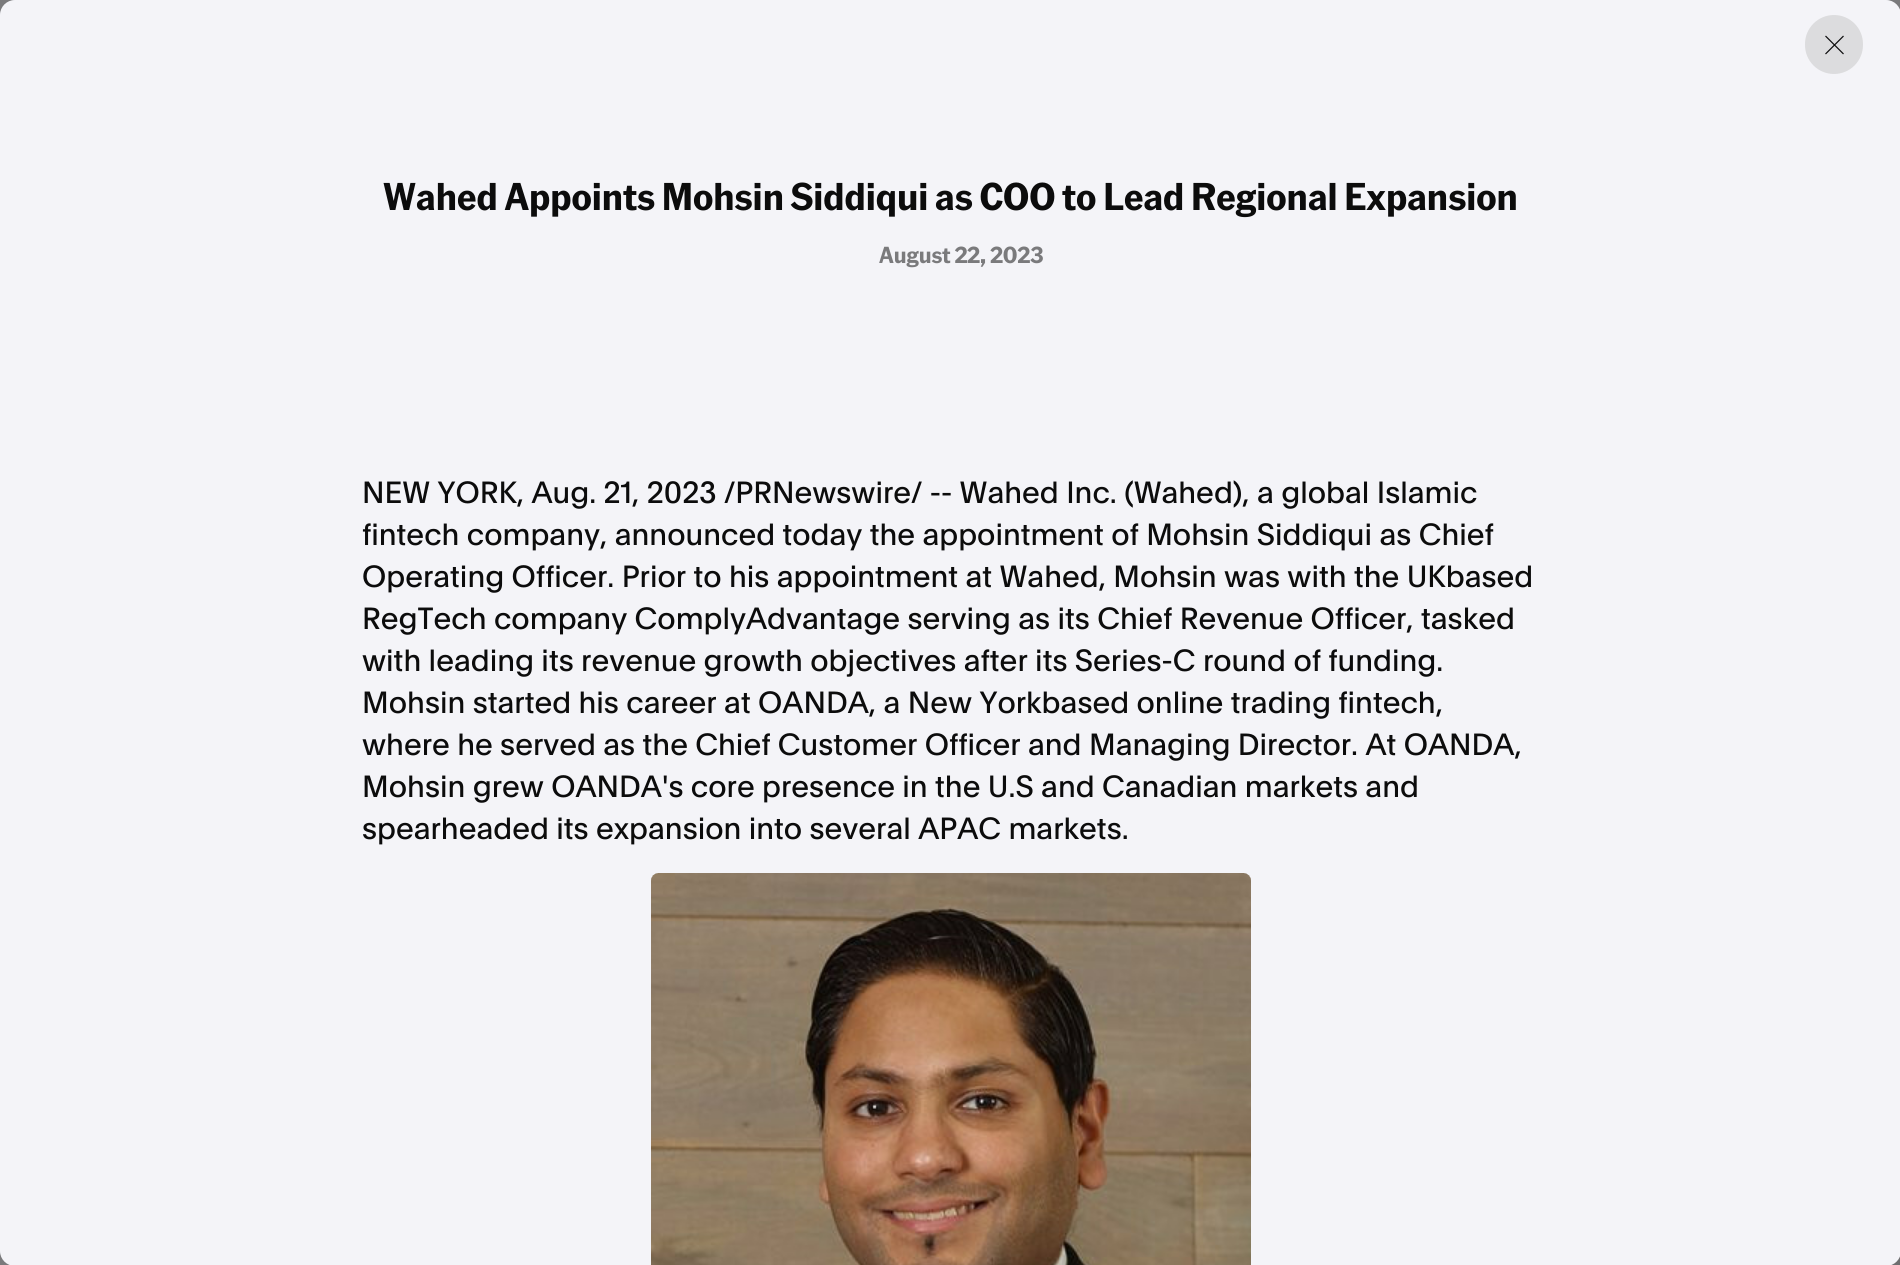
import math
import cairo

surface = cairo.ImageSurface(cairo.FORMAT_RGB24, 1900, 1265)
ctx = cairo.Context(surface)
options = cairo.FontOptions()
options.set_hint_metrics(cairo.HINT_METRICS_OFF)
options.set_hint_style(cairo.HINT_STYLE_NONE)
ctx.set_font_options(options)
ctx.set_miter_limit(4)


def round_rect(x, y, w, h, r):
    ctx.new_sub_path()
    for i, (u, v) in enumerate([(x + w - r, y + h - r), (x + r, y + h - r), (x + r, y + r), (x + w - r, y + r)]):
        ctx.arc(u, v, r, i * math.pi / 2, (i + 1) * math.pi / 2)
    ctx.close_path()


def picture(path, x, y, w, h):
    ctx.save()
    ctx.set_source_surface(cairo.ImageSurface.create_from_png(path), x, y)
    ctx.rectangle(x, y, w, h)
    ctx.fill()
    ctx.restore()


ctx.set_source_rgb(0.478, 0.478, 0.486)
ctx.paint()
ctx.set_source_rgb(0.431, 0.431, 0.435)
ctx.rectangle(1891, 1256, 9, 9)
ctx.fill()
ctx.set_source_rgb(0.957, 0.957, 0.969)
round_rect(0, 0, 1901, 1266, 15)
ctx.fill()
ctx.set_source_rgb(0.863, 0.863, 0.871)
round_rect(1805, 15, 58, 59, 29)
ctx.fill()
ctx.new_path()
ctx.move_to(1843.5, 36)
ctx.line_to(1825.5, 54)
ctx.move_to(1843.5, 54)
ctx.line_to(1825.5, 36)
ctx.set_source_rgb(0.047, 0.047, 0.047)
ctx.set_line_width(1.2)
ctx.set_line_join(cairo.LINE_JOIN_ROUND)
ctx.stroke()
ctx.select_font_face("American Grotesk", cairo.FONT_SLANT_NORMAL, cairo.FONT_WEIGHT_BOLD)
ctx.set_font_size(37.5)
ctx.move_to(383, 210)
ctx.show_text("Wahed Appoints Mohsin Siddiqui as COO to Lead Regional Expansion")
ctx.set_font_size(22.5)
ctx.set_source_rgb(0.478, 0.478, 0.486)
ctx.move_to(879, 263)
ctx.show_text("August 22, 2023")
ctx.select_font_face("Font")
ctx.set_font_size(30)
ctx.set_source_rgb(0.047, 0.047, 0.047)
ctx.move_to(362, 503)
ctx.show_text("NEW YORK, Aug. 21, 2023 /PRNewswire/ -- Wahed Inc. (Wahed), a global Islamic")
ctx.move_to(362, 545)
ctx.show_text("fintech company, announced today the appointment of Mohsin Siddiqui as Chief")
ctx.move_to(362, 587)
ctx.show_text("Operating Officer. Prior to his appointment at Wahed, Mohsin was with the UKbased")
ctx.move_to(362, 629)
ctx.show_text("RegTech company ComplyAdvantage serving as its Chief Revenue Officer, tasked")
ctx.move_to(362, 671)
ctx.show_text("with leading its revenue growth objectives after its Series-C round of funding.")
ctx.move_to(362, 713)
ctx.show_text("Mohsin started his career at OANDA, a New Yorkbased online trading fintech,")
ctx.move_to(362, 755)
ctx.show_text("where he served as the Chief Customer Officer and Managing Director. At OANDA,")
ctx.move_to(362, 797)
ctx.show_text("Mohsin grew OANDA's core presence in the U.S and Canadian markets and")
ctx.move_to(362, 839)
ctx.show_text("spearheaded its expansion into several APAC markets.")
picture("img1.png", 651, 873, 600, 392)
surface.write_to_png("page.png")
